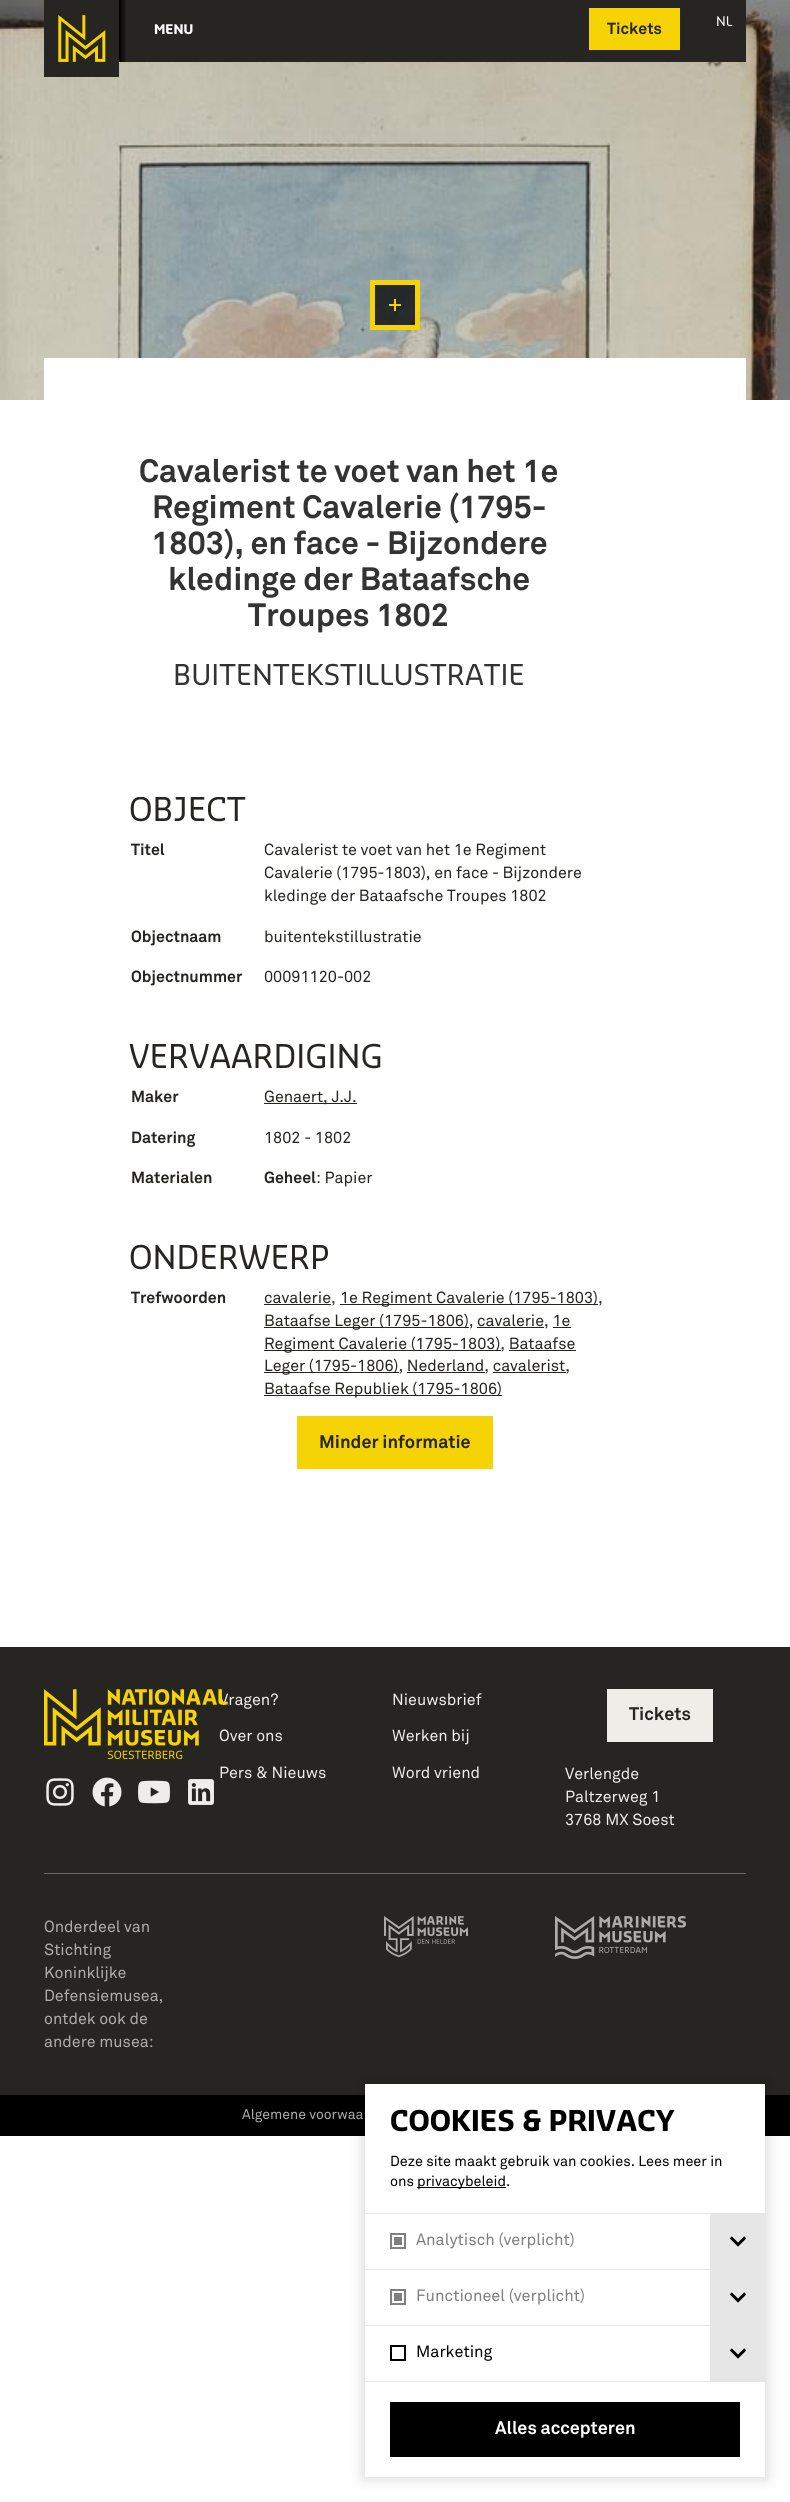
import math
import cairo

surface = cairo.ImageSurface(cairo.FORMAT_RGB24, 790, 2502)
ctx = cairo.Context(surface)
options = cairo.FontOptions()
options.set_hint_metrics(cairo.HINT_METRICS_OFF)
options.set_hint_style(cairo.HINT_STYLE_NONE)
ctx.set_font_options(options)
ctx.set_miter_limit(4)


def round_rect(x, y, w, h, r):
    ctx.new_sub_path()
    for i, (u, v) in enumerate([(x + w - r, y + h - r), (x + r, y + h - r), (x + r, y + r), (x + w - r, y + r)]):
        ctx.arc(u, v, r, i * math.pi / 2, (i + 1) * math.pi / 2)
    ctx.close_path()


def shadow(x, y, w, h, r, blur, alpha):
    ctx.push_group_with_content(cairo.CONTENT_ALPHA)
    ctx.set_operator(cairo.OPERATOR_SOURCE)
    for i in range(15, -16, -2):
        e = blur * i / 6
        if min(w, h) + 2 * e > 0:
            ctx.set_source_rgba(0, 0, 0, alpha * math.erfc((i - 1) / 8.5) / 2)
            round_rect(x - e, y - e, w + 2 * e, h + 2 * e, max(0, min(r + e + blur * .6, min(w, h) / 2 + e)))
            ctx.fill()
    ctx.mask(ctx.pop_group())


def picture(path, x, y, w, h):
    ctx.save()
    ctx.set_source_surface(cairo.ImageSurface.create_from_png(path), x, y)
    ctx.rectangle(x, y, w, h)
    ctx.fill()
    ctx.restore()


ctx.set_source_rgb(1, 1, 1)
ctx.paint()
picture("img2.png", 0, 0, 790, 400)
ctx.set_source_rgb(0.149, 0.145, 0.129)
ctx.rectangle(44, 0, 702, 62)
ctx.fill()
picture("img1.png", 44, 15, 75, 62)
gradient = cairo.LinearGradient(119, 31, 127, 31)
gradient.add_color_stop_rgba(0, 0, 0, 0, 1)
gradient.add_color_stop_rgba(1, 0.149, 0.145, 0.129, 1)
ctx.set_source(gradient)
ctx.rectangle(119, 0, 7, 62)
ctx.fill()
ctx.select_font_face("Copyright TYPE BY", cairo.FONT_SLANT_NORMAL, cairo.FONT_WEIGHT_BOLD)
ctx.set_font_size(13)
ctx.set_source_rgb(1, 1, 1)
ctx.move_to(154, 34)
ctx.show_text("MENU")
ctx.select_font_face("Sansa")
ctx.move_to(716, 26)
ctx.show_text("NL")
ctx.set_source_rgb(0.961, 0.827, 0.016)
ctx.rectangle(589, 8, 91, 42)
ctx.fill()
ctx.select_font_face("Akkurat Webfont", cairo.FONT_SLANT_NORMAL, cairo.FONT_WEIGHT_BOLD)
ctx.set_font_size(16)
ctx.set_source_rgb(0.149, 0.145, 0.129)
ctx.move_to(607, 34)
ctx.show_text("Tickets")
ctx.set_source_rgba(0, 0, 0, 0.75)
ctx.rectangle(372.5, 282.5, 45, 45)
ctx.fill_preserve()
ctx.set_source_rgb(0.961, 0.827, 0.016)
ctx.set_line_width(5)
ctx.stroke()
picture("img3.png", 389, 299, 12, 12)
ctx.set_source_rgb(1, 1, 1)
ctx.rectangle(44, 358, 702, 42)
ctx.fill()
ctx.set_font_size(32)
ctx.set_source_rgb(0.2, 0.2, 0.2)
ctx.move_to(139, 482)
ctx.show_text("Cavalerist te voet van het 1e")
ctx.move_to(152, 518)
ctx.show_text("Regiment Cavalerie (1795-")
ctx.move_to(151, 554)
ctx.show_text("1803), en face - Bijzondere")
ctx.move_to(168, 590)
ctx.show_text("kledinge der Bataafsche")
ctx.move_to(248, 626)
ctx.show_text("Troupes 1802")
ctx.select_font_face("Sansa")
ctx.set_font_size(28)
ctx.move_to(173, 685)
ctx.show_text("BUITENTEKSTILLUSTRATIE")
ctx.save()
ctx.rectangle(0, 797, 790, 850)
ctx.clip()
ctx.set_font_size(32)
ctx.set_source_rgb(0.149, 0.145, 0.129)
ctx.move_to(129, 821)
ctx.show_text("OBJECT")
ctx.restore()
ctx.save()
ctx.rectangle(131, 831, 131, 85)
ctx.clip()
ctx.select_font_face("Akkurat Webfont", cairo.FONT_SLANT_NORMAL, cairo.FONT_WEIGHT_BOLD)
ctx.set_font_size(16)
ctx.set_source_rgb(0.149, 0.145, 0.129)
ctx.move_to(131, 855)
ctx.show_text("Titel")
ctx.restore()
ctx.select_font_face("Akkurat Webfont")
ctx.set_font_size(16)
ctx.set_source_rgb(0.149, 0.145, 0.129)
ctx.move_to(264, 855)
ctx.show_text("Cavalerist te voet van het 1e Regiment")
ctx.move_to(264, 878)
ctx.show_text("Cavalerie (1795-1803), en face - Bijzondere")
ctx.move_to(264, 901)
ctx.show_text("kledinge der Bataafsche Troupes 1802")
ctx.select_font_face("Akkurat Webfont", cairo.FONT_SLANT_NORMAL, cairo.FONT_WEIGHT_BOLD)
ctx.move_to(131, 942)
ctx.show_text("Objectnaam")
ctx.select_font_face("Akkurat Webfont")
ctx.move_to(264, 942)
ctx.show_text("buitentekstillustratie")
ctx.select_font_face("Akkurat Webfont", cairo.FONT_SLANT_NORMAL, cairo.FONT_WEIGHT_BOLD)
ctx.move_to(131, 982)
ctx.show_text("Objectnummer")
ctx.select_font_face("Akkurat Webfont")
ctx.move_to(264, 982)
ctx.show_text("00091120-002")
ctx.select_font_face("Sansa")
ctx.set_font_size(32)
ctx.move_to(129, 1068)
ctx.show_text("VERVAARDIGING")
ctx.select_font_face("Akkurat Webfont", cairo.FONT_SLANT_NORMAL, cairo.FONT_WEIGHT_BOLD)
ctx.set_font_size(16)
ctx.move_to(131, 1102)
ctx.show_text("Maker")
ctx.rectangle(264, 1103, 93, 1)
ctx.fill()
ctx.select_font_face("Akkurat Webfont")
ctx.move_to(264, 1102)
ctx.show_text("Genaert, J.J.")
ctx.select_font_face("Akkurat Webfont", cairo.FONT_SLANT_NORMAL, cairo.FONT_WEIGHT_BOLD)
ctx.move_to(131, 1143)
ctx.show_text("Datering")
ctx.select_font_face("Akkurat Webfont")
ctx.move_to(264, 1143)
ctx.show_text("1802 - 1802")
ctx.select_font_face("Akkurat Webfont", cairo.FONT_SLANT_NORMAL, cairo.FONT_WEIGHT_BOLD)
ctx.move_to(131, 1183)
ctx.show_text("Materialen")
ctx.move_to(264, 1183)
ctx.show_text("Geheel")
ctx.select_font_face("Akkurat Webfont")
ctx.move_to(316, 1183)
ctx.show_text(": Papier")
ctx.select_font_face("Sansa")
ctx.set_font_size(32)
ctx.move_to(129, 1269)
ctx.show_text("ONDERWERP")
ctx.save()
ctx.rectangle(131, 1279, 131, 130)
ctx.clip()
ctx.select_font_face("Akkurat Webfont", cairo.FONT_SLANT_NORMAL, cairo.FONT_WEIGHT_BOLD)
ctx.set_font_size(16)
ctx.move_to(131, 1303)
ctx.show_text("Trefwoorden")
ctx.restore()
ctx.rectangle(264, 1304, 67, 1)
ctx.fill()
ctx.select_font_face("Akkurat Webfont")
ctx.set_font_size(16)
ctx.move_to(264, 1303)
ctx.show_text("cavalerie,")
ctx.rectangle(340, 1304, 258, 1)
ctx.fill()
ctx.move_to(340, 1303)
ctx.show_text("1e Regiment Cavalerie (1795-1803),")
ctx.rectangle(264, 1327, 205, 1)
ctx.fill()
ctx.move_to(264, 1326)
ctx.show_text("Bataafse Leger (1795-1806), cavalerie, 1e")
ctx.rectangle(477, 1327, 67, 1)
ctx.fill()
ctx.rectangle(264, 1350, 237, 1)
ctx.fill()
ctx.move_to(264, 1349)
ctx.show_text("Regiment Cavalerie (1795-1803), Bataafse")
ctx.rectangle(553, 1327, 18, 1)
ctx.fill()
ctx.rectangle(264, 1372, 135, 1)
ctx.fill()
ctx.move_to(264, 1371)
ctx.show_text("Leger (1795-1806), Nederland, cavalerist,")
ctx.rectangle(509, 1350, 67, 1)
ctx.fill()
ctx.rectangle(407, 1372, 78, 1)
ctx.fill()
ctx.rectangle(493, 1372, 73, 1)
ctx.fill()
ctx.rectangle(264, 1395, 238, 1)
ctx.fill()
ctx.move_to(264, 1394)
ctx.show_text("Bataafse Republiek (1795-1806)")
ctx.set_source_rgb(0.961, 0.827, 0.016)
ctx.rectangle(297, 1416, 196, 53)
ctx.fill()
ctx.select_font_face("Akkurat Webfont", cairo.FONT_SLANT_NORMAL, cairo.FONT_WEIGHT_BOLD)
ctx.set_font_size(18)
ctx.set_source_rgb(0.149, 0.145, 0.129)
ctx.move_to(319, 1448)
ctx.show_text("Minder informatie")
ctx.rectangle(0, 1647, 790, 448)
ctx.fill()
ctx.select_font_face("Akkurat Webfont")
ctx.set_font_size(16)
ctx.set_source_rgb(0.933, 0.929, 0.906)
ctx.move_to(219, 1705)
ctx.show_text("Vragen?")
ctx.move_to(219, 1741)
ctx.show_text("Over ons")
picture("img4.png", 44, 1689, 184, 70)
picture("img5.png", 46, 1778, 28, 28)
picture("img6.png", 92, 1777, 30, 30)
picture("img7.png", 138, 1780, 32, 24)
picture("img8.png", 188, 1779, 26, 26)
ctx.move_to(219, 1778)
ctx.show_text("Pers & Nieuws")
ctx.move_to(392, 1705)
ctx.show_text("Nieuwsbrief")
ctx.move_to(392, 1741)
ctx.show_text("Werken bij")
ctx.move_to(392, 1778)
ctx.show_text("Word vriend")
ctx.rectangle(607, 1689, 106, 53)
ctx.fill()
ctx.select_font_face("Akkurat Webfont", cairo.FONT_SLANT_NORMAL, cairo.FONT_WEIGHT_BOLD)
ctx.set_font_size(18)
ctx.set_source_rgb(0.149, 0.145, 0.129)
ctx.move_to(629, 1720)
ctx.show_text("Tickets")
ctx.select_font_face("Akkurat Webfont")
ctx.set_font_size(16)
ctx.set_source_rgb(0.933, 0.929, 0.906)
ctx.move_to(565, 1779)
ctx.show_text("Verlengde")
ctx.move_to(565, 1802)
ctx.show_text("Paltzerweg 1")
ctx.move_to(565, 1825)
ctx.show_text("3768 MX Soest")
ctx.set_source_rgb(0.416, 0.412, 0.396)
ctx.rectangle(44, 1873, 702, 1)
ctx.fill()
ctx.set_source_rgb(0.678, 0.678, 0.659)
ctx.move_to(44, 1932)
ctx.show_text("Onderdeel van")
ctx.move_to(44, 1955)
ctx.show_text("Stichting")
ctx.move_to(44, 1978)
ctx.show_text("Koninklijke")
ctx.move_to(44, 2001)
ctx.show_text("Defensiemusea,")
ctx.move_to(44, 2024)
ctx.show_text("ontdek ook de")
ctx.move_to(44, 2047)
ctx.show_text("andere musea:")
picture("img9.png", 384, 1916, 84, 42)
picture("img10.png", 555, 1916, 131, 43)
ctx.set_source_rgb(0, 0, 0)
ctx.rectangle(0, 2095, 790, 41)
ctx.fill()
ctx.set_font_size(14)
ctx.set_source_rgb(0.678, 0.678, 0.659)
ctx.move_to(242, 2119)
ctx.show_text("Algemene voorwaa")
ctx.set_source_rgb(0, 0, 0)
shadow(363, 2082, 404, 397, 0, 7.5, 0.15)
ctx.set_source_rgb(1, 1, 1)
ctx.rectangle(365, 2084, 400, 393)
ctx.fill()
ctx.select_font_face("Copyright TYPE BY", cairo.FONT_SLANT_NORMAL, cairo.FONT_WEIGHT_BOLD)
ctx.set_font_size(28)
ctx.set_source_rgb(0, 0, 0)
ctx.move_to(390, 2131)
ctx.show_text("COOKIES & PRIVACY")
ctx.select_font_face("Akkurat Webfont")
ctx.set_font_size(14.4)
ctx.move_to(390, 2166)
ctx.show_text("Deze site maakt gebruik van cookies. Lees meer in")
ctx.move_to(390, 2186)
ctx.show_text("ons")
ctx.rectangle(417, 2187, 89, 1)
ctx.fill()
ctx.move_to(417, 2186)
ctx.show_text("privacybeleid.")
ctx.set_source_rgb(0.902, 0.902, 0.902)
ctx.rectangle(365, 2381, 400, 1)
ctx.fill()
ctx.rectangle(365, 2213, 400, 1)
ctx.fill()
ctx.rectangle(391, 2234, 14, 14)
ctx.set_source_rgb(0.502, 0.502, 0.502)
ctx.set_line_width(2)
ctx.stroke()
ctx.rectangle(394, 2237, 8, 8)
ctx.fill()
ctx.set_font_size(16.25)
ctx.move_to(416, 2245)
ctx.show_text("Analytisch (verplicht)")
ctx.set_source_rgb(0.902, 0.902, 0.902)
ctx.rectangle(710, 2214, 55, 55)
ctx.fill()
picture("img11.png", 729, 2236, 18, 11)
ctx.rectangle(365, 2269, 400, 1)
ctx.fill()
ctx.rectangle(391, 2290, 14, 14)
ctx.set_source_rgb(0.502, 0.502, 0.502)
ctx.stroke()
ctx.rectangle(394, 2293, 8, 8)
ctx.fill()
ctx.move_to(416, 2301)
ctx.show_text("Functioneel (verplicht)")
ctx.set_source_rgb(0.902, 0.902, 0.902)
ctx.rectangle(710, 2270, 55, 55)
ctx.fill()
picture("img11.png", 729, 2292, 18, 11)
ctx.rectangle(365, 2325, 400, 1)
ctx.fill()
ctx.rectangle(391, 2346, 14, 14)
ctx.set_source_rgb(0, 0, 0)
ctx.stroke()
ctx.move_to(416, 2357)
ctx.show_text("Marketing")
ctx.set_source_rgb(0.902, 0.902, 0.902)
ctx.rectangle(710, 2326, 55, 55)
ctx.fill()
picture("img11.png", 729, 2348, 18, 11)
ctx.set_source_rgb(0, 0, 0)
ctx.rectangle(390, 2402, 350, 55)
ctx.fill()
ctx.select_font_face("Akkurat Webfont", cairo.FONT_SLANT_NORMAL, cairo.FONT_WEIGHT_BOLD)
ctx.set_font_size(18)
ctx.set_source_rgb(1, 1, 1)
ctx.move_to(495, 2434)
ctx.show_text("Alles accepteren")
surface.write_to_png("page.png")
